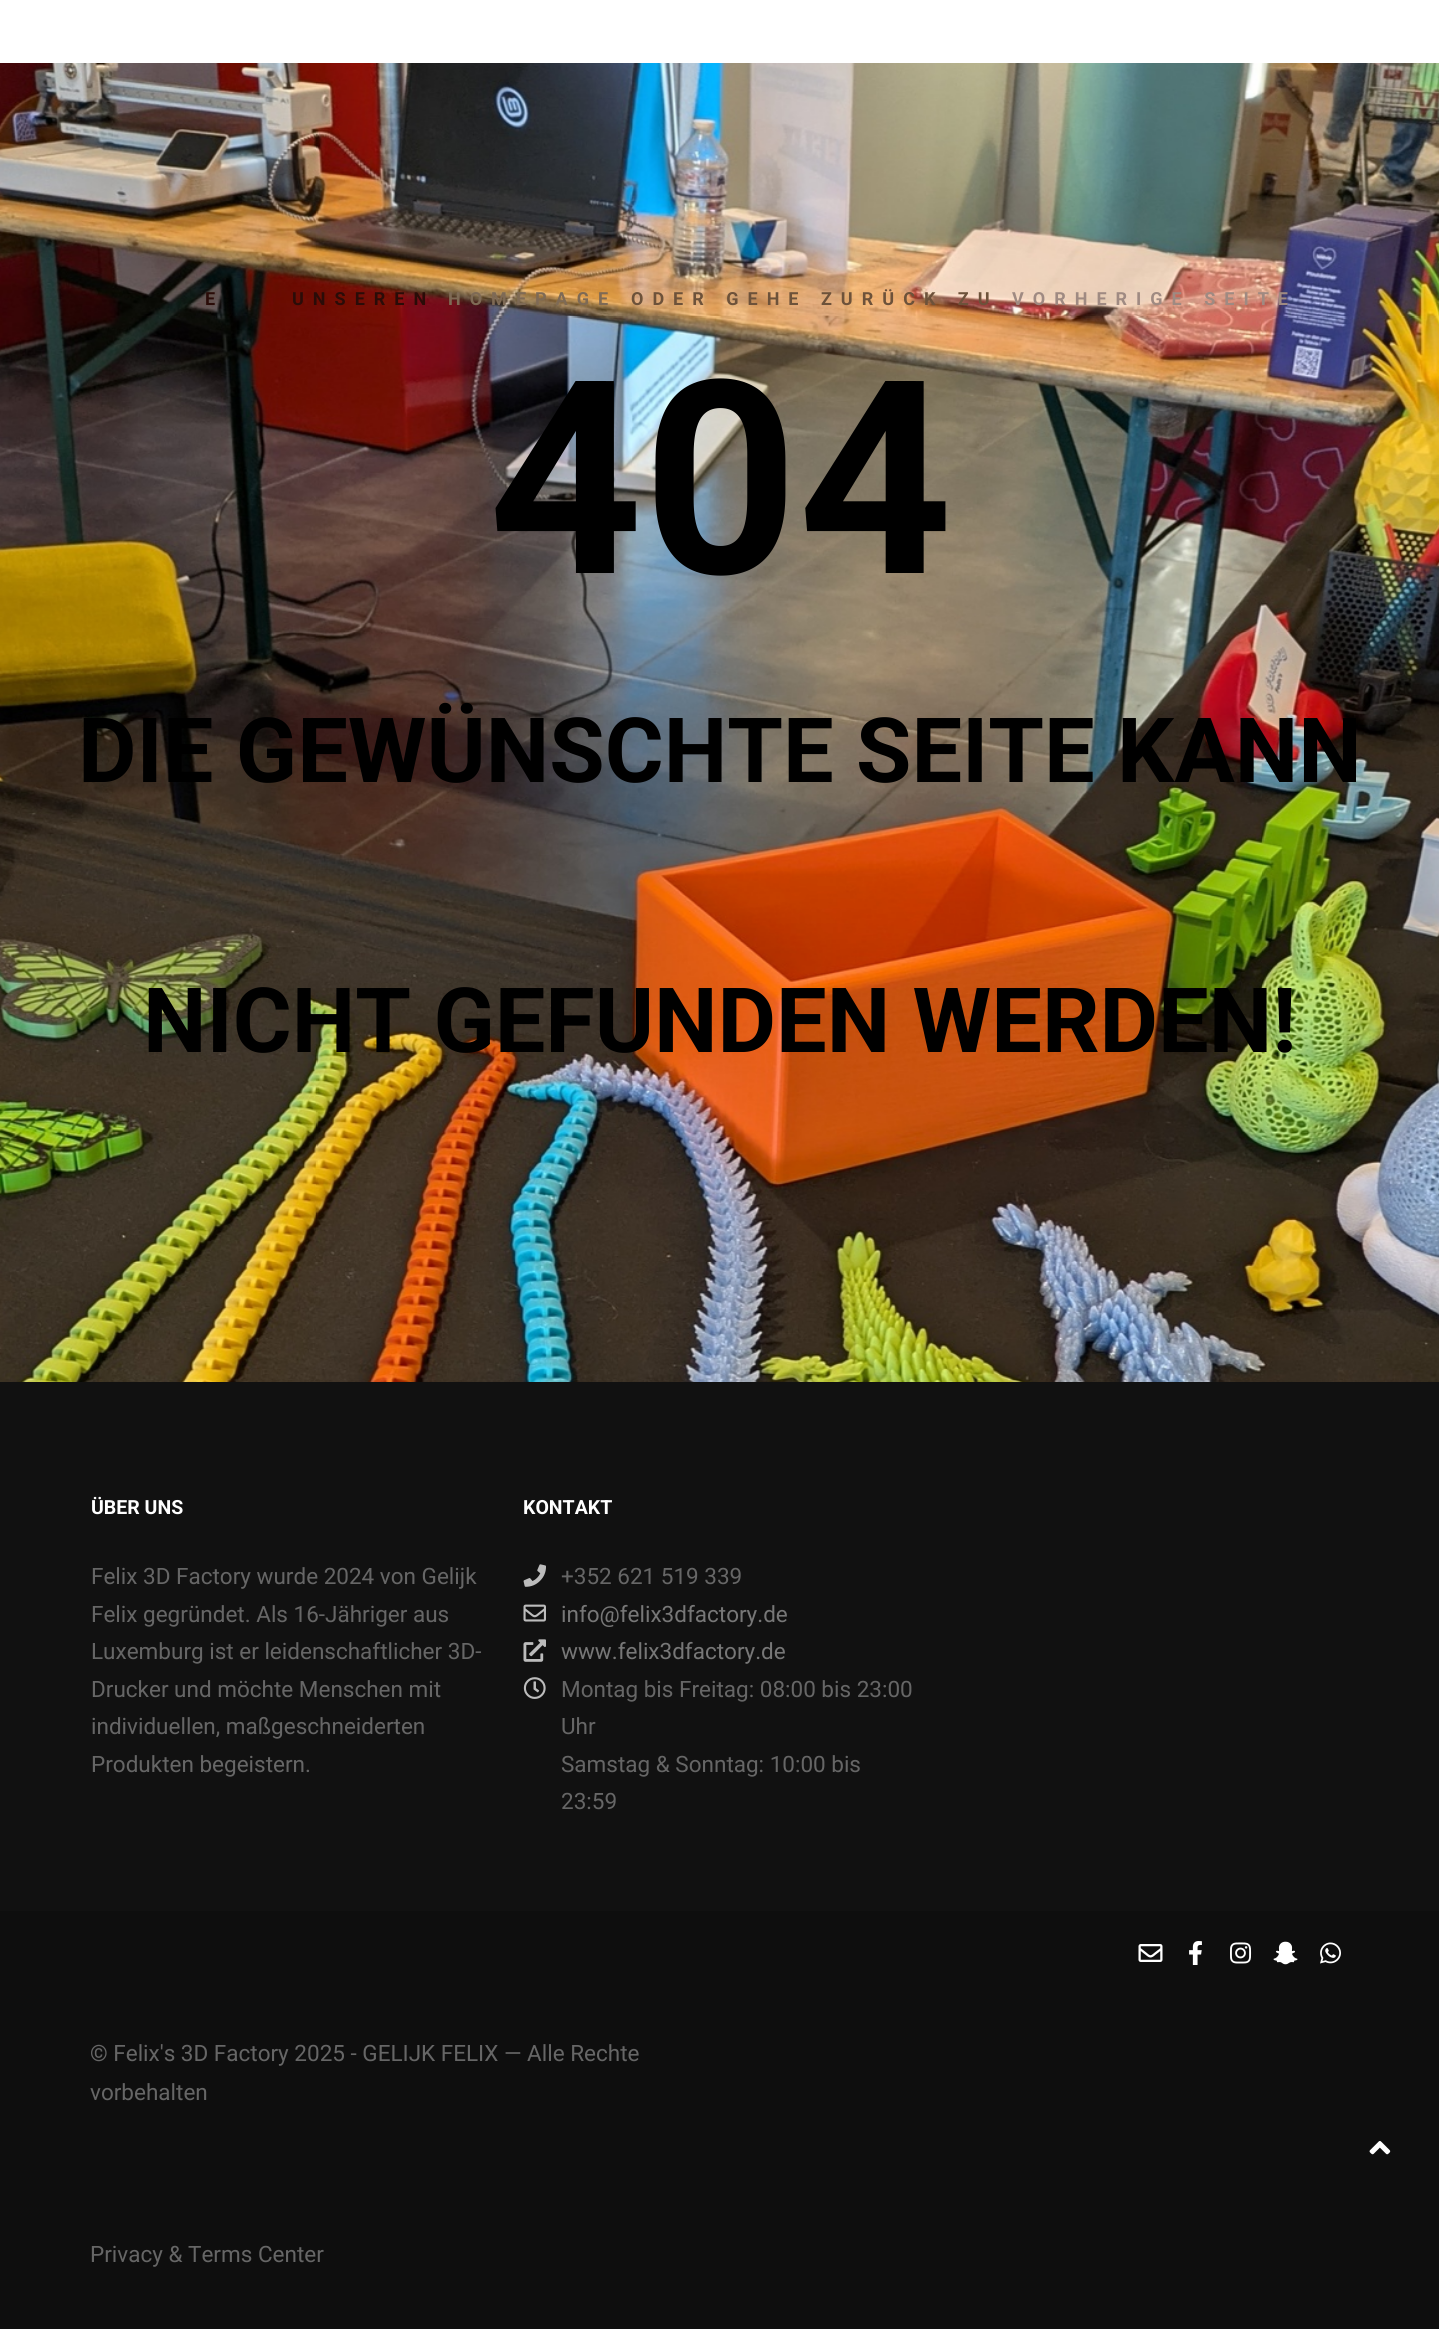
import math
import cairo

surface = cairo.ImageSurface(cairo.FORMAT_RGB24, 1439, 2329)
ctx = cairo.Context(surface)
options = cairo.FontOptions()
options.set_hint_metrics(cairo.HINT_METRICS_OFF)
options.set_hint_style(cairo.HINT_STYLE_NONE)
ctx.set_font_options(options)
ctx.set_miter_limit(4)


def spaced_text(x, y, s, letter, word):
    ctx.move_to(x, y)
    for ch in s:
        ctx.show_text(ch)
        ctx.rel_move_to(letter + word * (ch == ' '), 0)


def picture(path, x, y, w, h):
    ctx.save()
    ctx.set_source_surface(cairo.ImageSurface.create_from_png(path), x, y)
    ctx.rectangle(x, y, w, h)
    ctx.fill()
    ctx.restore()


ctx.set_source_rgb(1, 1, 1)
ctx.paint()
picture("img1.png", 0, 63, 1439, 1319)
ctx.select_font_face("Roboto", cairo.FONT_SLANT_NORMAL, cairo.FONT_WEIGHT_BOLD)
ctx.set_font_size(18)
ctx.set_source_rgb(0.165, 0.047, 0.035)
spaced_text(205, 305, "E", 9, 0)
spaced_text(292, 305, "UNSEREN", 9, 0)
ctx.set_source_rgb(0.494, 0.416, 0.333)
spaced_text(448, 305, "HOMEPAGE", 9, 0)
ctx.set_source_rgb(0.427, 0.322, 0.227)
spaced_text(631, 305, "ODER GEHE ZURÜCK ZU", 9, 0)
ctx.set_source_rgb(0.624, 0.541, 0.51)
spaced_text(1012, 305, "VORHERIGE SEITE", 9, 0)
ctx.set_font_size(270)
ctx.set_source_rgb(0, 0, 0)
ctx.move_to(488, 573)
ctx.show_text("404")
ctx.set_font_size(90)
ctx.move_to(78, 782)
ctx.show_text("DIE GEWÜNSCHTE SEITE KANN")
ctx.move_to(143, 1052)
ctx.show_text("NICHT GEFUNDEN WERDEN!")
ctx.set_source_rgb(0.067, 0.067, 0.067)
ctx.rectangle(0, 1382, 1439, 529)
ctx.fill()
ctx.set_font_size(19.5)
ctx.set_source_rgb(1, 1, 1)
ctx.move_to(91, 1514)
ctx.show_text("ÜBER UNS")
ctx.select_font_face("Roboto")
ctx.set_font_size(22.5)
ctx.set_source_rgb(0.4, 0.4, 0.4)
ctx.move_to(91, 1584)
ctx.show_text("Felix 3D Factory wurde 2024 von Gelijk")
ctx.move_to(91, 1622)
ctx.show_text("Felix gegründet. Als 16-Jähriger aus")
ctx.move_to(91, 1659)
ctx.show_text("Luxemburg ist er leidenschaftlicher 3D-")
ctx.move_to(91, 1697)
ctx.show_text("Drucker und möchte Menschen mit")
ctx.move_to(91, 1734)
ctx.show_text("individuellen, maßgeschneiderten")
ctx.move_to(91, 1772)
ctx.show_text("Produkten begeistern.")
ctx.select_font_face("Roboto", cairo.FONT_SLANT_NORMAL, cairo.FONT_WEIGHT_BOLD)
ctx.set_font_size(19.5)
ctx.set_source_rgb(1, 1, 1)
ctx.move_to(523, 1514)
ctx.show_text("KONTAKT")
picture("img2.png", 523, 1564, 23, 23)
ctx.select_font_face("Roboto")
ctx.set_font_size(22.5)
ctx.set_source_rgb(0.4, 0.4, 0.4)
ctx.move_to(561, 1584)
ctx.show_text("+352 621 519 339")
picture("img3.png", 523, 1604, 23, 18)
ctx.set_source_rgb(0.467, 0.467, 0.467)
ctx.move_to(561, 1622)
ctx.show_text("info@felix3dfactory.de")
picture("img4.png", 523, 1639, 23, 23)
ctx.move_to(561, 1659)
ctx.show_text("www.felix3dfactory.de")
picture("img5.png", 523, 1677, 23, 22)
ctx.set_source_rgb(0.4, 0.4, 0.4)
ctx.move_to(561, 1697)
ctx.show_text("Montag bis Freitag: 08:00 bis 23:00")
ctx.move_to(561, 1734)
ctx.show_text("Uhr")
ctx.move_to(561, 1772)
ctx.show_text("Samstag & Sonntag: 10:00 bis")
ctx.move_to(561, 1809)
ctx.show_text("23:59")
ctx.set_source_rgb(0.055, 0.055, 0.055)
ctx.rectangle(0, 1911, 1439, 418)
ctx.fill()
picture("img6.png", 1138, 1944, 25, 18)
picture("img7.png", 1189, 1941, 13, 24)
picture("img8.png", 1230, 1942, 22, 22)
picture("img9.png", 1273, 1941, 25, 24)
picture("img10.png", 1320, 1942, 21, 22)
ctx.set_source_rgb(0.4, 0.4, 0.4)
ctx.move_to(90, 2061)
ctx.show_text("© Felix's 3D Factory 2025 - GELIJK FELIX — Alle Rechte")
ctx.move_to(90, 2100)
ctx.show_text("vorbehalten")
ctx.move_to(90, 2262)
ctx.show_text("Privacy & Terms Center")
picture("img11.png", 1369, 2141, 22, 14)
surface.write_to_png("page.png")
